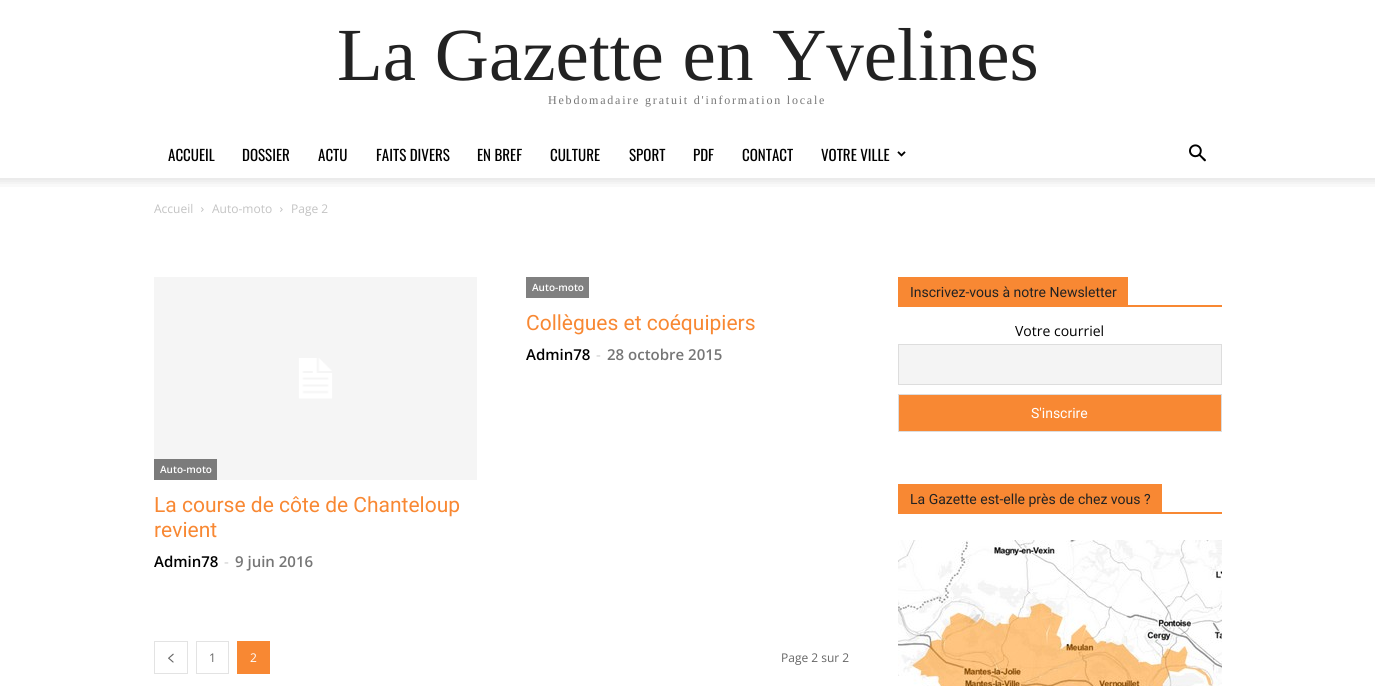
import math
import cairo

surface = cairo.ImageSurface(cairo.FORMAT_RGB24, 1375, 686)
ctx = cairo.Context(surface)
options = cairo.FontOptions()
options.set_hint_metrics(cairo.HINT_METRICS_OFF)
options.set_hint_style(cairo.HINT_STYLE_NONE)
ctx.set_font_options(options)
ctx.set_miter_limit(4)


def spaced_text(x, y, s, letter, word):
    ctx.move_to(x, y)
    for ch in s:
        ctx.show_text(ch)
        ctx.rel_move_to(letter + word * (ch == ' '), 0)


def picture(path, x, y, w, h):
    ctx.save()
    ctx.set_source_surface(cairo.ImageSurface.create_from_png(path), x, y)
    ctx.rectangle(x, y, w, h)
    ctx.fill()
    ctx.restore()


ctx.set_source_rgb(1, 1, 1)
ctx.paint()
ctx.select_font_face("Liberation Serif")
ctx.set_font_size(75)
ctx.set_source_rgb(0.133, 0.133, 0.133)
ctx.move_to(337, 80)
ctx.show_text("La Gazette en Yvelines")
ctx.set_font_size(12)
ctx.set_source_rgb(0.463, 0.463, 0.463)
spaced_text(548, 104, "Hebdomadaire gratuit d'information locale", 1.8, 0)
ctx.select_font_face("Oswald")
ctx.set_font_size(15)
ctx.set_source_rgb(0, 0, 0)
ctx.move_to(168, 161)
ctx.show_text("ACCUEIL")
ctx.move_to(242, 161)
ctx.show_text("DOSSIER")
ctx.move_to(318, 161)
ctx.show_text("ACTU")
ctx.move_to(376, 161)
ctx.show_text("FAITS DIVERS")
ctx.move_to(477, 161)
ctx.show_text("EN BREF")
ctx.move_to(550, 161)
ctx.show_text("CULTURE")
ctx.move_to(629, 161)
ctx.show_text("SPORT")
ctx.move_to(693, 161)
ctx.show_text("PDF")
ctx.move_to(742, 161)
ctx.show_text("CONTACT")
ctx.move_to(821, 161)
ctx.show_text("VOTRE VILLE")
picture("img1.png", 897, 151, 9, 6)
picture("img2.png", 1189, 144, 17, 18)
picture("img3.png", 0, 178, 1375, 9)
ctx.select_font_face("Open Sans")
ctx.set_font_size(12)
ctx.set_source_rgb(0.765, 0.765, 0.765)
ctx.move_to(154, 213)
ctx.show_text("Accueil")
picture("img4.png", 201, 207, 3, 5)
ctx.move_to(212, 213)
ctx.show_text("Auto-moto")
picture("img4.png", 280, 207, 3, 5)
ctx.move_to(291, 213)
ctx.show_text("Page 2")
ctx.set_source_rgb(0.502, 0.502, 0.502)
ctx.rectangle(526, 277, 63, 21)
ctx.fill()
ctx.select_font_face("Open Sans SemiBold")
ctx.set_font_size(10)
ctx.set_source_rgb(1, 1, 1)
ctx.move_to(532, 291)
ctx.show_text("Auto-moto")
ctx.select_font_face("Roboto")
ctx.set_font_size(21)
ctx.set_source_rgb(0.969, 0.533, 0.2)
ctx.move_to(526, 330)
ctx.show_text("Collègues et coéquipiers")
ctx.select_font_face("Open Sans SemiBold")
ctx.set_font_size(15)
ctx.set_source_rgb(0, 0, 0)
ctx.move_to(526, 360)
ctx.show_text("Admin78")
ctx.select_font_face("Open Sans")
ctx.set_source_rgb(0.8, 0.8, 0.8)
ctx.move_to(596, 360)
ctx.show_text("-")
ctx.select_font_face("Open Sans SemiBold")
ctx.set_source_rgb(0.463, 0.463, 0.463)
ctx.move_to(607, 360)
ctx.show_text("28 octobre 2015")
picture("img5.png", 154, 277, 323, 203)
ctx.set_source_rgb(0.482, 0.482, 0.482)
ctx.rectangle(154, 459, 63, 21)
ctx.fill()
ctx.set_font_size(10)
ctx.set_source_rgb(1, 1, 1)
ctx.move_to(160, 473)
ctx.show_text("Auto-moto")
ctx.select_font_face("Roboto")
ctx.set_font_size(21)
ctx.set_source_rgb(0.969, 0.533, 0.2)
ctx.move_to(154, 512)
ctx.show_text("La course de côte de Chanteloup")
ctx.move_to(154, 537)
ctx.show_text("revient")
ctx.select_font_face("Open Sans SemiBold")
ctx.set_font_size(15)
ctx.set_source_rgb(0, 0, 0)
ctx.move_to(154, 567)
ctx.show_text("Admin78")
ctx.select_font_face("Open Sans")
ctx.set_source_rgb(0.8, 0.8, 0.8)
ctx.move_to(224, 567)
ctx.show_text("-")
ctx.select_font_face("Open Sans SemiBold")
ctx.set_source_rgb(0.463, 0.463, 0.463)
ctx.move_to(235, 567)
ctx.show_text("9 juin 2016")
ctx.rectangle(154.5, 641.5, 33, 32)
ctx.set_source_rgb(0.89, 0.89, 0.89)
ctx.set_line_width(1)
ctx.stroke()
picture("img6.png", 168, 653, 6, 10)
ctx.rectangle(196.5, 641.5, 32, 32)
ctx.stroke()
ctx.select_font_face("Open Sans")
ctx.set_font_size(12)
ctx.set_source_rgb(0.4, 0.4, 0.4)
ctx.move_to(209, 662)
ctx.show_text("1")
ctx.set_source_rgb(0.969, 0.533, 0.2)
ctx.rectangle(237, 641, 33, 33)
ctx.fill()
ctx.set_source_rgb(1, 1, 1)
ctx.move_to(250, 662)
ctx.show_text("2")
ctx.set_source_rgb(0.4, 0.4, 0.4)
ctx.move_to(781, 662)
ctx.show_text("Page 2 sur 2")
ctx.set_source_rgb(0.969, 0.533, 0.2)
ctx.rectangle(898, 305, 324, 2)
ctx.fill()
ctx.rectangle(898, 277, 230, 28)
ctx.fill()
ctx.select_font_face("Roboto")
ctx.set_font_size(14)
ctx.set_source_rgb(0.133, 0.133, 0.133)
ctx.move_to(910, 297)
ctx.show_text("Inscrivez-vous à notre Newsletter")
ctx.select_font_face("Open Sans")
ctx.set_source_rgb(0, 0, 0)
ctx.move_to(1015, 336)
ctx.show_text("Votre courriel")
ctx.set_source_rgb(0.957, 0.957, 0.957)
ctx.rectangle(898.5, 344.5, 323, 40)
ctx.fill_preserve()
ctx.set_source_rgb(0.867, 0.867, 0.867)
ctx.stroke()
ctx.set_source_rgb(0.969, 0.533, 0.2)
ctx.rectangle(898.5, 394.5, 323, 37)
ctx.fill_preserve()
ctx.set_source_rgb(0.867, 0.867, 0.867)
ctx.stroke()
ctx.select_font_face("Roboto")
ctx.set_source_rgb(1, 1, 1)
ctx.move_to(1031, 418)
ctx.show_text("S'inscrire")
ctx.set_source_rgb(0.969, 0.533, 0.2)
ctx.rectangle(898, 512, 324, 2)
ctx.fill()
ctx.rectangle(898, 484, 264, 28)
ctx.fill()
ctx.set_source_rgb(0.133, 0.133, 0.133)
ctx.move_to(910, 504)
ctx.show_text("La Gazette est-elle près de chez vous ?")
picture("img7.png", 898, 540, 324, 146)
surface.write_to_png("page.png")
